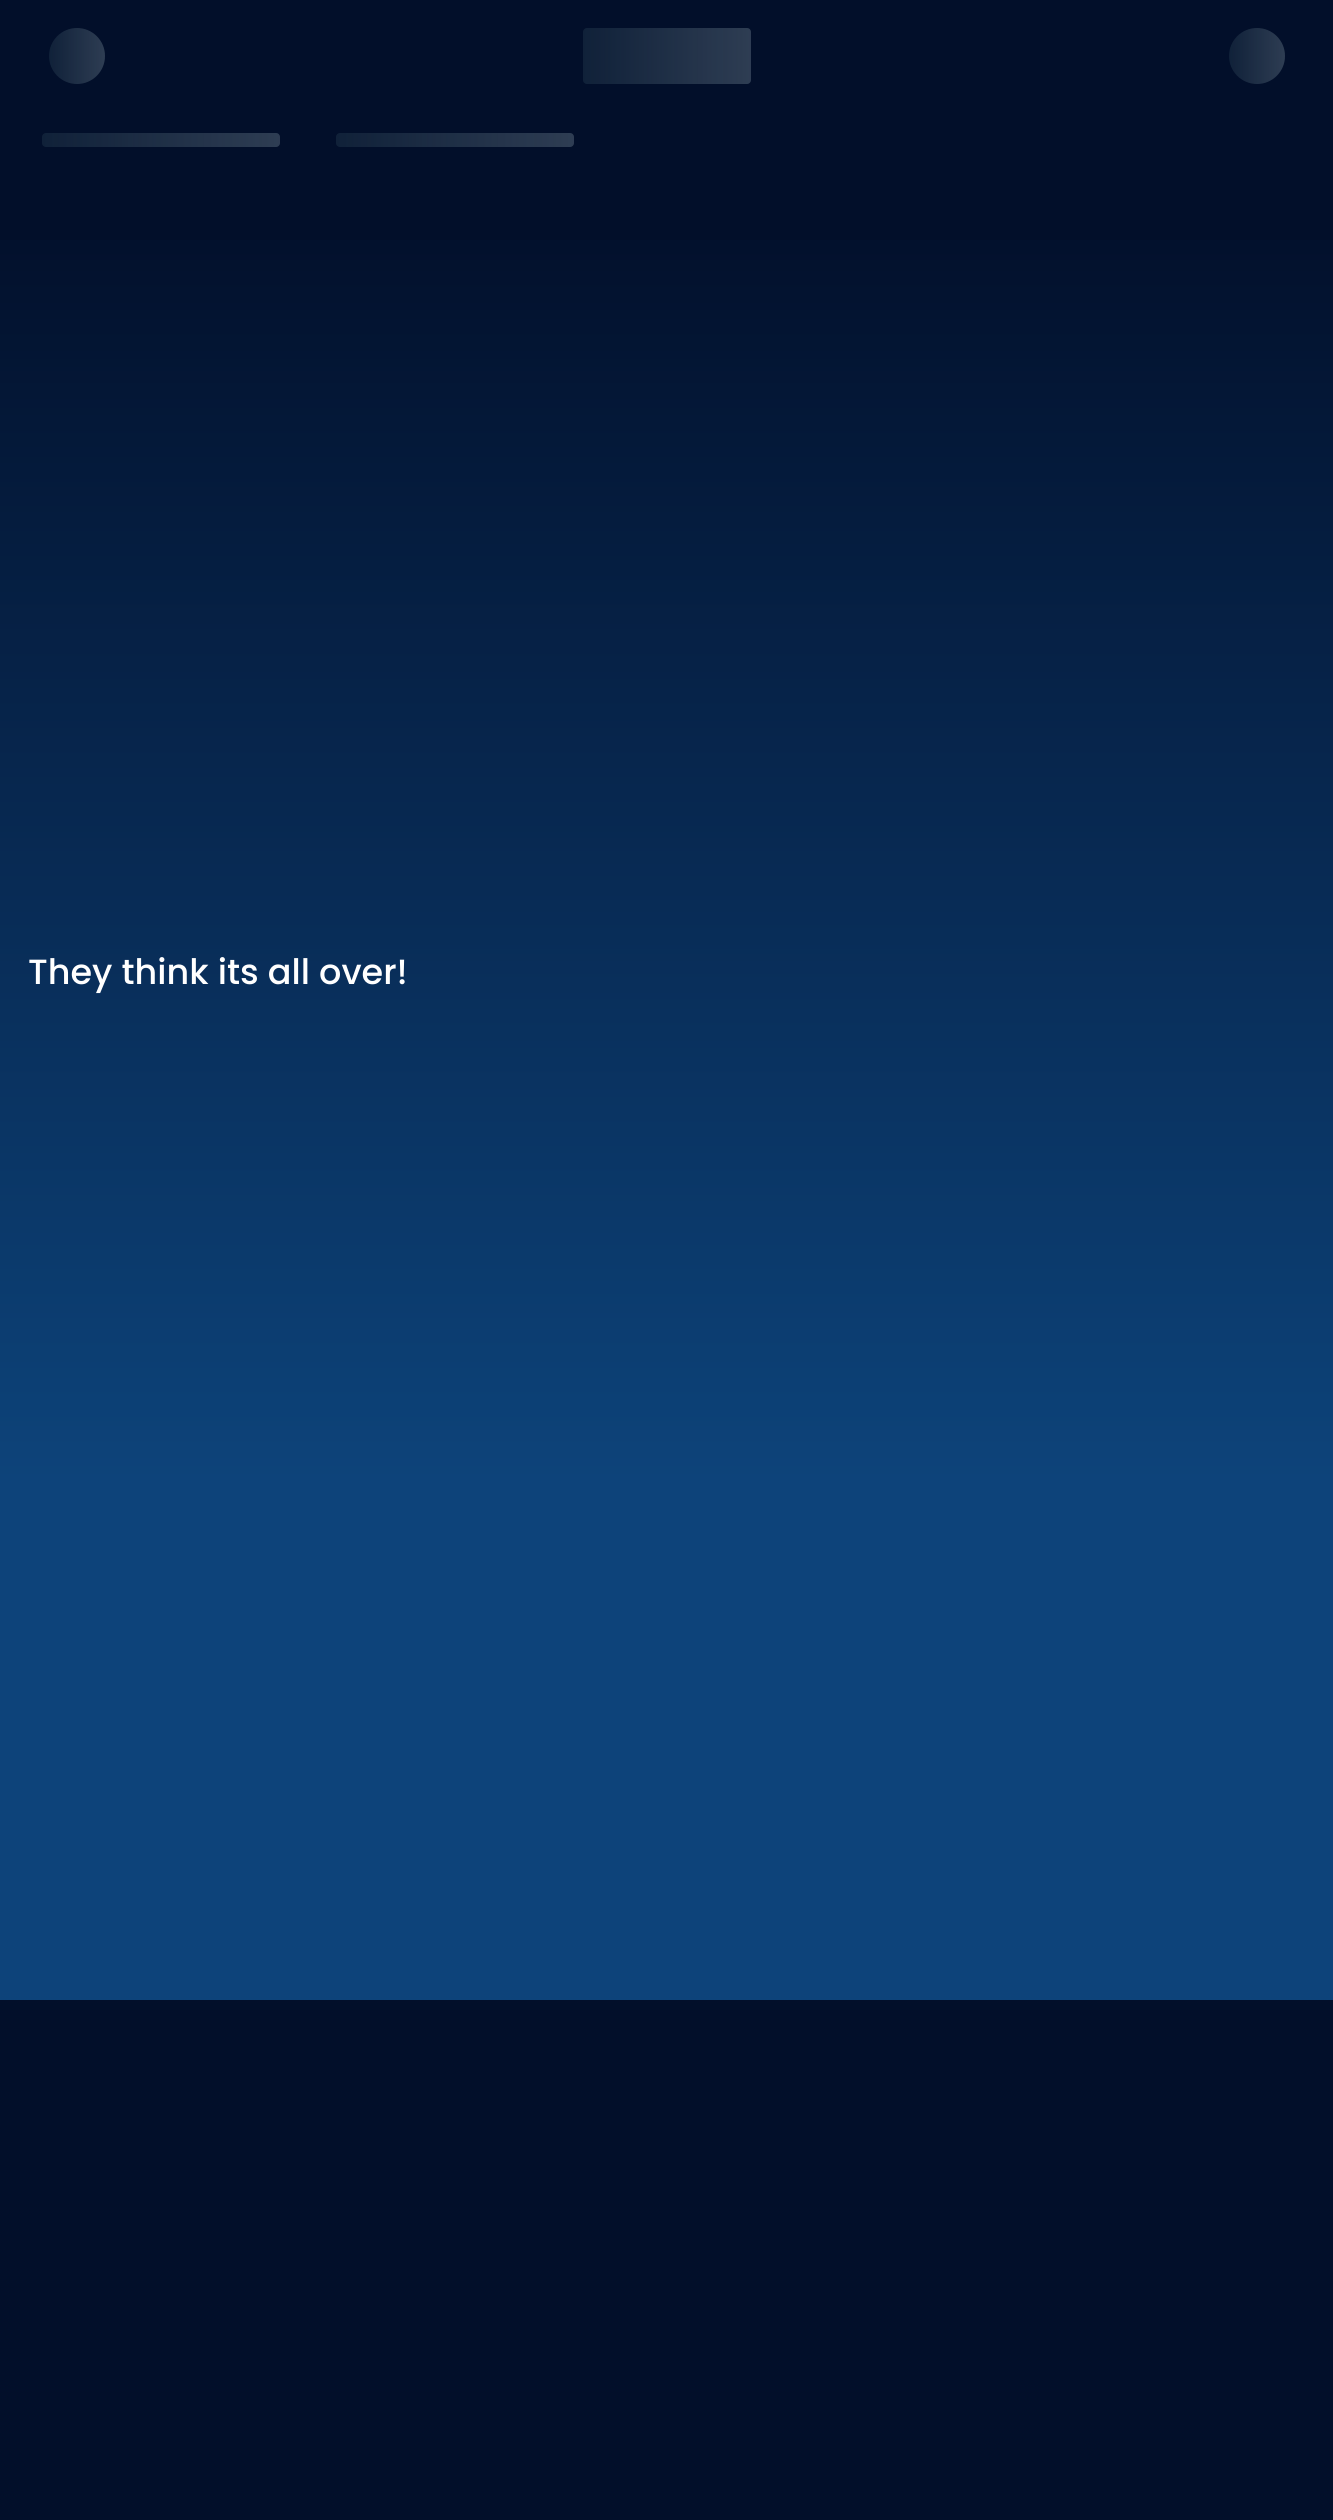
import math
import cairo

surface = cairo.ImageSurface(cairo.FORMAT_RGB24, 1333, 2520)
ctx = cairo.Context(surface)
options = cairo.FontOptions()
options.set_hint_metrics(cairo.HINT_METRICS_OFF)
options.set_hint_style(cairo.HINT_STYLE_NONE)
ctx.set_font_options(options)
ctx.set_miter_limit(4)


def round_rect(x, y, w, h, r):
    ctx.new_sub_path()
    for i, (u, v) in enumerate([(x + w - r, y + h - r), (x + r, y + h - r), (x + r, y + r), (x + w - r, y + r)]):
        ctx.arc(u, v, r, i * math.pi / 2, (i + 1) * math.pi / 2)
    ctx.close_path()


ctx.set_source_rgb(0.008, 0.059, 0.165)
ctx.paint()
ctx.set_source_rgb(0.063, 0.129, 0.224)
ctx.arc(77, 56, 28, 0, 2 * math.pi)
ctx.fill()
gradient = cairo.LinearGradient(49, 56, 161, 56)
gradient.add_color_stop_rgba(0, 0.647, 0.675, 0.733, 0)
gradient.add_color_stop_rgba(0.5, 0.647, 0.675, 0.733, 0.2)
gradient.add_color_stop_rgba(1, 0.647, 0.675, 0.733, 0)
ctx.set_source(gradient)
ctx.arc(77, 56, 28, 0, 2 * math.pi)
ctx.fill()
ctx.set_source_rgb(0.063, 0.129, 0.224)
round_rect(583, 28, 168, 56, 4)
ctx.fill()
gradient = cairo.LinearGradient(583, 56, 919, 56)
gradient.add_color_stop_rgba(0, 0.647, 0.675, 0.733, 0)
gradient.add_color_stop_rgba(0.5, 0.647, 0.675, 0.733, 0.2)
gradient.add_color_stop_rgba(1, 0.647, 0.675, 0.733, 0)
ctx.set_source(gradient)
round_rect(583, 28, 168, 56, 4)
ctx.fill()
ctx.set_source_rgb(0.063, 0.129, 0.224)
ctx.arc(1257, 56, 28, 0, 2 * math.pi)
ctx.fill()
gradient = cairo.LinearGradient(1229, 56, 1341, 56)
gradient.add_color_stop_rgba(0, 0.647, 0.675, 0.733, 0)
gradient.add_color_stop_rgba(0.5, 0.647, 0.675, 0.733, 0.2)
gradient.add_color_stop_rgba(1, 0.647, 0.675, 0.733, 0)
ctx.set_source(gradient)
ctx.arc(1257, 56, 28, 0, 2 * math.pi)
ctx.fill()
ctx.set_source_rgb(0.063, 0.129, 0.224)
round_rect(42, 133, 238, 14, 4)
ctx.fill()
gradient = cairo.LinearGradient(42, 140, 518, 140)
gradient.add_color_stop_rgba(0, 0.647, 0.675, 0.733, 0)
gradient.add_color_stop_rgba(0.5, 0.647, 0.675, 0.733, 0.2)
gradient.add_color_stop_rgba(1, 0.647, 0.675, 0.733, 0)
ctx.set_source(gradient)
round_rect(42, 133, 238, 14, 4)
ctx.fill()
ctx.set_source_rgb(0.063, 0.129, 0.224)
round_rect(336, 133, 238, 14, 4)
ctx.fill()
gradient = cairo.LinearGradient(336, 140, 812, 140)
gradient.add_color_stop_rgba(0, 0.647, 0.675, 0.733, 0)
gradient.add_color_stop_rgba(0.5, 0.647, 0.675, 0.733, 0.2)
gradient.add_color_stop_rgba(1, 0.647, 0.675, 0.733, 0)
ctx.set_source(gradient)
round_rect(336, 133, 238, 14, 4)
ctx.fill()
gradient = cairo.LinearGradient(667, 0, 667, 2000)
gradient.add_color_stop_rgba(0.1, 0.008, 0.059, 0.165, 1)
gradient.add_color_stop_rgba(0.74, 0.051, 0.263, 0.478, 1)
ctx.set_source(gradient)
ctx.rectangle(0, 240, 1333, 1760)
ctx.fill()
ctx.select_font_face("Poppins Medium")
ctx.set_font_size(35)
ctx.set_source_rgb(1, 1, 1)
ctx.move_to(28, 984)
ctx.show_text("They think its all over!")
surface.write_to_png("page.png")
